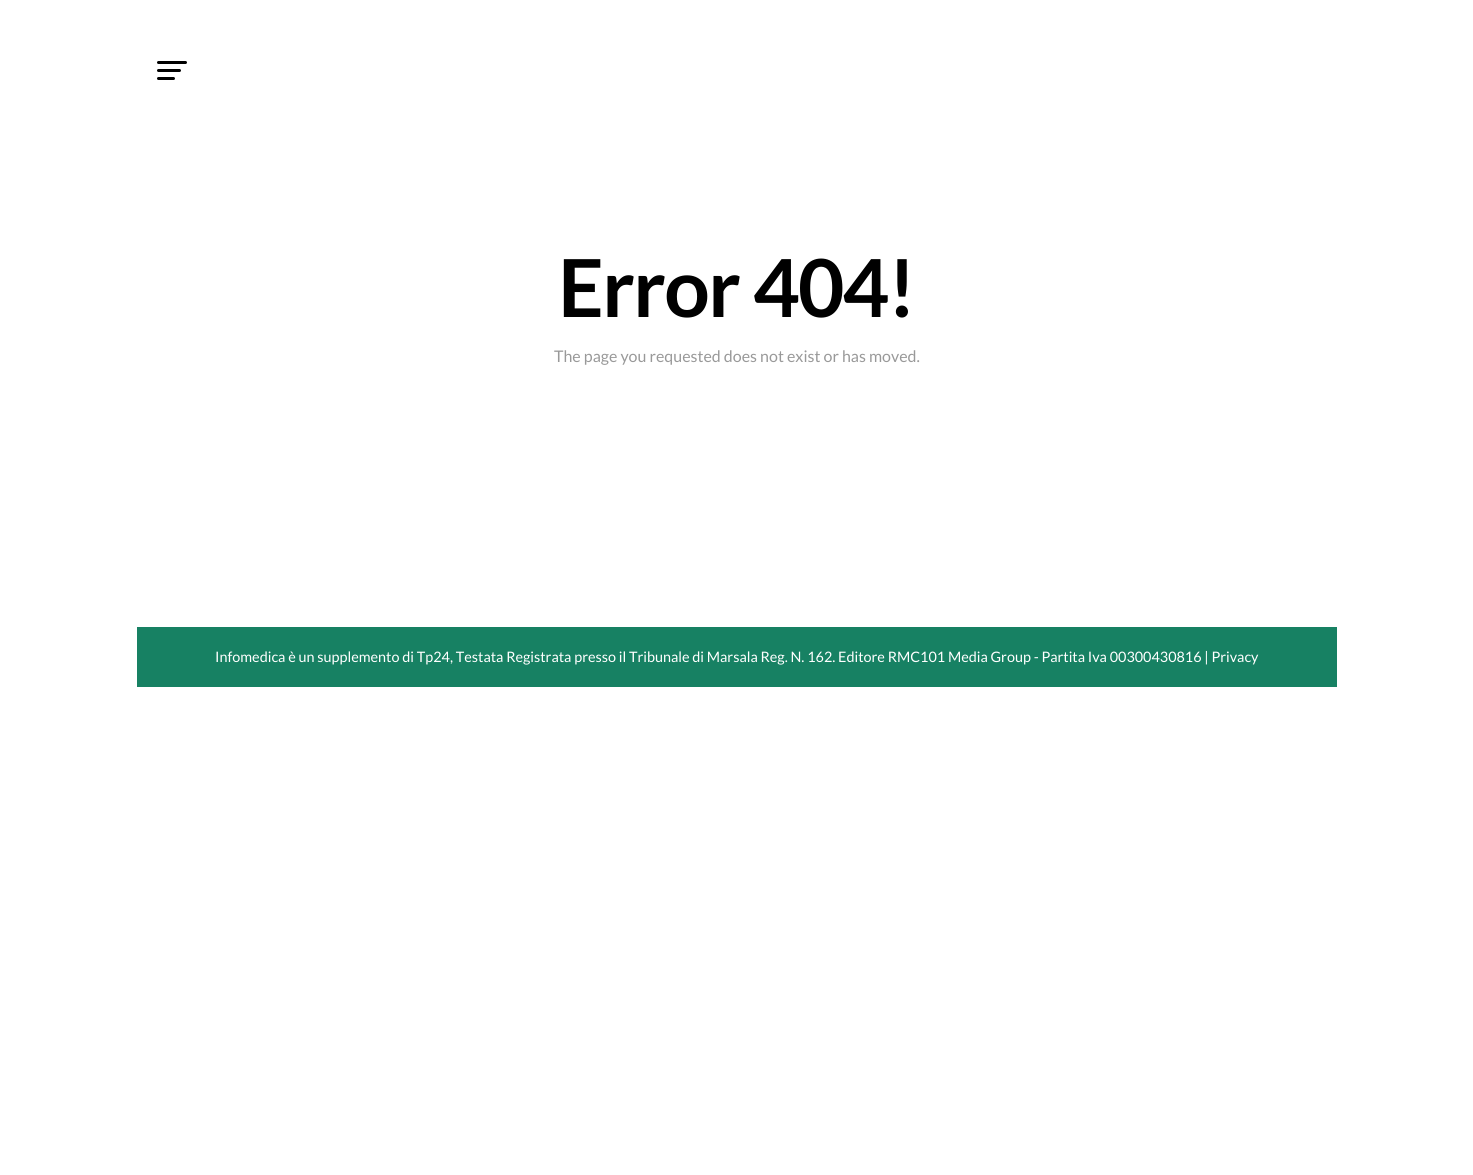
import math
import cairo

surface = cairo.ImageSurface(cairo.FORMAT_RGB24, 1473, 1175)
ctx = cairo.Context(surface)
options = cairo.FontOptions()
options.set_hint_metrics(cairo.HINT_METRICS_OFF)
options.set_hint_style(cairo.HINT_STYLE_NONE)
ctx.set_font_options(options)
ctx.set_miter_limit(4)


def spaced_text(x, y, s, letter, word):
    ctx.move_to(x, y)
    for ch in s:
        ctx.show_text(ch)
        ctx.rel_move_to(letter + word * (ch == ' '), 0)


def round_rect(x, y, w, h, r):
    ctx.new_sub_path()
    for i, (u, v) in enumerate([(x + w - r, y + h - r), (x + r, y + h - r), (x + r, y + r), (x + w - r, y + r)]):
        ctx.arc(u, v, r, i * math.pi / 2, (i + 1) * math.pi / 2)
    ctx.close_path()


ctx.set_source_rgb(1, 1, 1)
ctx.paint()
ctx.set_source_rgb(0, 0, 0)
round_rect(157, 61, 30, 3, 1.5)
ctx.fill()
round_rect(157, 69, 24, 3, 1.5)
ctx.fill()
round_rect(157, 77, 18, 3, 1.5)
ctx.fill()
ctx.select_font_face("Lato", cairo.FONT_SLANT_NORMAL, cairo.FONT_WEIGHT_BOLD)
ctx.set_font_size(80)
spaced_text(558, 317, "Error 404!", -1.6, 0)
ctx.select_font_face("Lato")
ctx.set_font_size(16)
ctx.set_source_rgb(0.6, 0.6, 0.6)
ctx.move_to(554, 362)
ctx.show_text("The page you requested does not exist or has moved.")
ctx.set_source_rgb(0.09, 0.506, 0.388)
ctx.rectangle(137, 627, 1200, 60)
ctx.fill()
ctx.set_font_size(14.4)
ctx.set_source_rgb(1, 1, 1)
ctx.move_to(215, 662)
ctx.show_text("Infomedica è un supplemento di Tp24, Testata Registrata presso il Tribunale di Marsala Reg. N. 162. Editore RMC101 Media Group - Partita Iva 00300430816 | Privacy")
surface.write_to_png("page.png")
